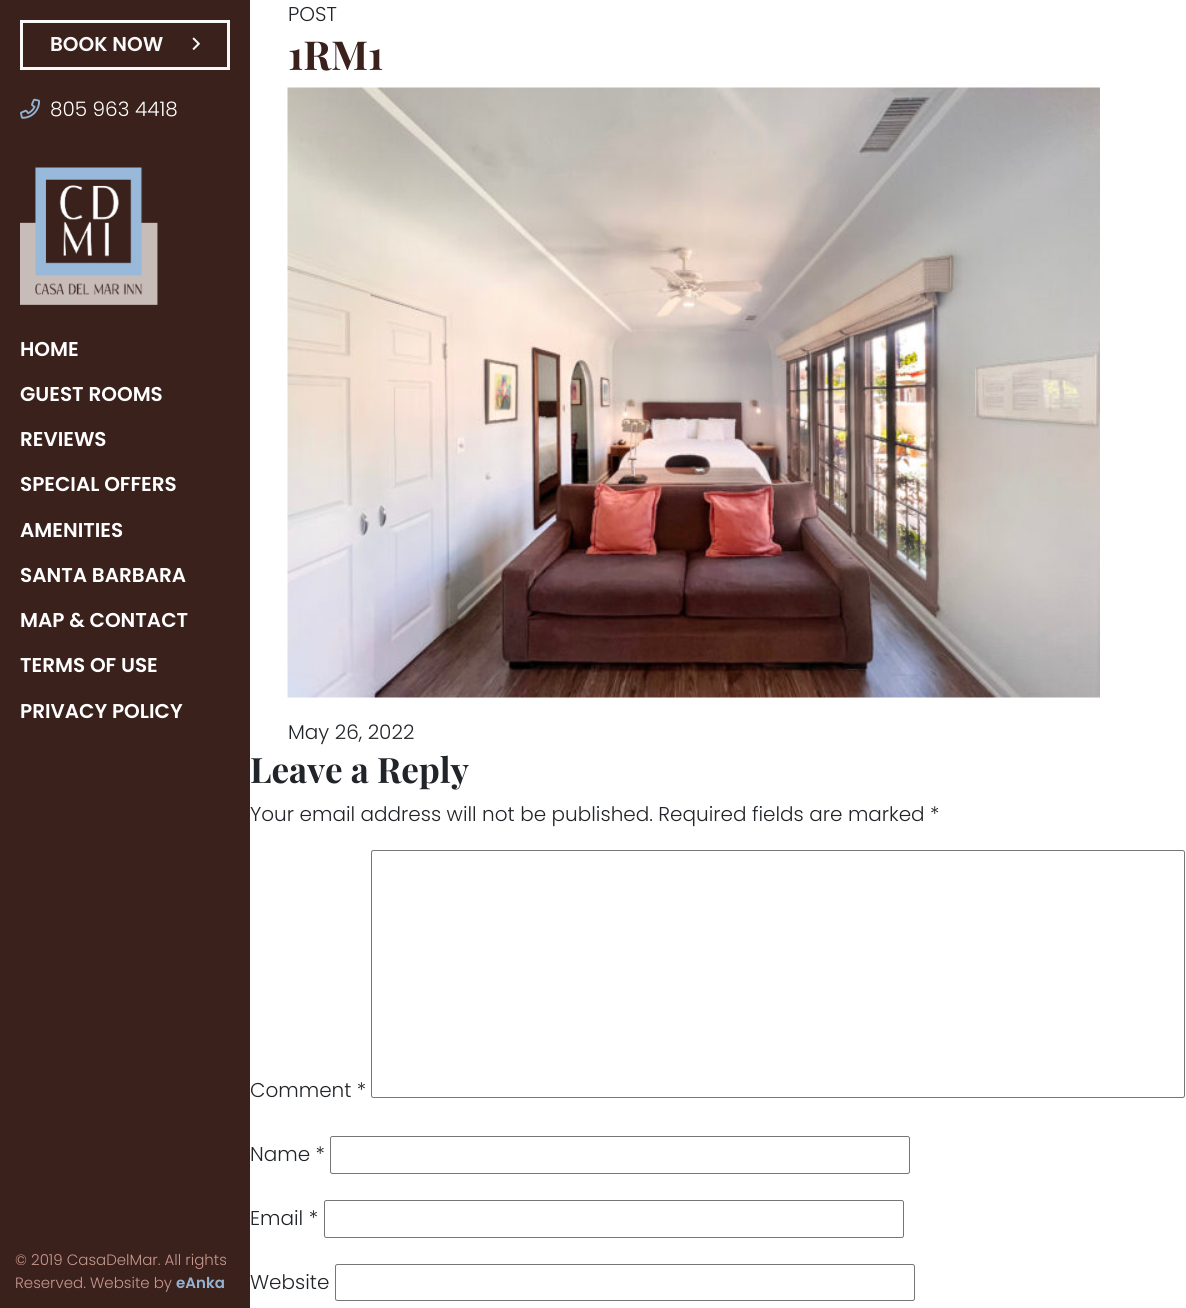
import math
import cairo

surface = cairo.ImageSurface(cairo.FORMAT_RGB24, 1186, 1308)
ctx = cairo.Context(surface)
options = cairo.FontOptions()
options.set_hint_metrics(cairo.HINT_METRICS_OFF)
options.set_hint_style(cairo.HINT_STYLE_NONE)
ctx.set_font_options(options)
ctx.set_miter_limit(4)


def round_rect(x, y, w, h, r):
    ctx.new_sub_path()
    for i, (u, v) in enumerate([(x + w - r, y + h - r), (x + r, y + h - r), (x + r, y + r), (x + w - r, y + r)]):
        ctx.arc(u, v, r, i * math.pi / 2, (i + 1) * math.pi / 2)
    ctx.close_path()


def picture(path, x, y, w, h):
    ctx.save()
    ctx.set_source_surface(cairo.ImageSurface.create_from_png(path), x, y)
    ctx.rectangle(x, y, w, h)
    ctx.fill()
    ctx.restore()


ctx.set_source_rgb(1, 1, 1)
ctx.paint()
ctx.set_source_rgb(0.227, 0.129, 0.11)
ctx.rectangle(0, 0, 250, 1308)
ctx.fill()
ctx.rectangle(21.5, 21.5, 207, 47)
ctx.set_source_rgb(0.973, 0.976, 0.98)
ctx.set_line_width(3)
ctx.stroke()
ctx.select_font_face("Poppins SemiBold")
ctx.set_font_size(20)
ctx.move_to(50, 51)
ctx.show_text("BOOK NOW")
picture("img1.png", 192, 37, 8, 13)
picture("img2.png", 20, 98, 20, 21)
ctx.select_font_face("Poppins Light")
ctx.set_source_rgb(1, 1, 1)
ctx.move_to(50, 116)
ctx.show_text("805 963 4418")
picture("img3.png", 20, 167, 138, 138)
ctx.select_font_face("Poppins SemiBold")
ctx.move_to(20, 356)
ctx.show_text("HOME")
ctx.move_to(20, 401)
ctx.show_text("GUEST ROOMS")
ctx.move_to(20, 446)
ctx.show_text("REVIEWS")
ctx.move_to(20, 491)
ctx.show_text("SPECIAL OFFERS")
ctx.move_to(20, 537)
ctx.show_text("AMENITIES")
ctx.move_to(20, 582)
ctx.show_text("SANTA BARBARA")
ctx.move_to(20, 627)
ctx.show_text("MAP & CONTACT")
ctx.move_to(20, 672)
ctx.show_text("TERMS OF USE")
ctx.move_to(20, 718)
ctx.show_text("PRIVACY POLICY")
ctx.select_font_face("Poppins Light")
ctx.set_source_rgb(0.129, 0.145, 0.161)
ctx.move_to(288, 21)
ctx.show_text("POST")
ctx.select_font_face("Playfair Display", cairo.FONT_SLANT_NORMAL, cairo.FONT_WEIGHT_BOLD)
ctx.set_font_size(40)
ctx.set_source_rgb(0.227, 0.129, 0.11)
ctx.move_to(288, 70)
ctx.show_text("1RM1")
picture("img4.png", 287, 87, 813, 611)
ctx.select_font_face("Poppins Light")
ctx.set_font_size(20)
ctx.set_source_rgb(0.129, 0.145, 0.161)
ctx.move_to(288, 739)
ctx.show_text("May 26, 2022")
ctx.select_font_face("Playfair Display", cairo.FONT_SLANT_NORMAL, cairo.FONT_WEIGHT_BOLD)
ctx.set_font_size(35)
ctx.move_to(250, 783)
ctx.show_text("Leave a Reply")
ctx.select_font_face("Poppins Light")
ctx.set_font_size(20)
ctx.move_to(250, 821)
ctx.show_text("Your email address will not be published. Required fields are marked *")
ctx.move_to(250, 1097)
ctx.show_text("Comment *")
round_rect(371.5, 850.5, 813, 247, 2)
ctx.set_source_rgb(0.463, 0.463, 0.463)
ctx.set_line_width(1)
ctx.stroke()
ctx.set_source_rgb(0.129, 0.145, 0.161)
ctx.move_to(250, 1161)
ctx.show_text("Name *")
round_rect(330.5, 1136.5, 579, 37, 2)
ctx.set_source_rgb(0.463, 0.463, 0.463)
ctx.stroke()
ctx.set_source_rgb(0.129, 0.145, 0.161)
ctx.move_to(250, 1225)
ctx.show_text("Email *")
round_rect(324.5, 1200.5, 579, 37, 2)
ctx.set_source_rgb(0.463, 0.463, 0.463)
ctx.stroke()
ctx.set_source_rgb(0.129, 0.145, 0.161)
ctx.move_to(250, 1289)
ctx.show_text("Website")
round_rect(335.5, 1264.5, 579, 36, 2)
ctx.set_source_rgb(0.463, 0.463, 0.463)
ctx.stroke()
ctx.set_font_size(15)
ctx.set_source_rgb(0.784, 0.592, 0.553)
ctx.move_to(15, 1265)
ctx.show_text("© 2019 CasaDelMar. All rights")
ctx.move_to(15, 1288)
ctx.show_text("Reserved. Website by")
ctx.select_font_face("Poppins SemiBold")
ctx.set_source_rgb(0.58, 0.702, 0.827)
ctx.move_to(176, 1288)
ctx.show_text("eAnka")
surface.write_to_png("page.png")
